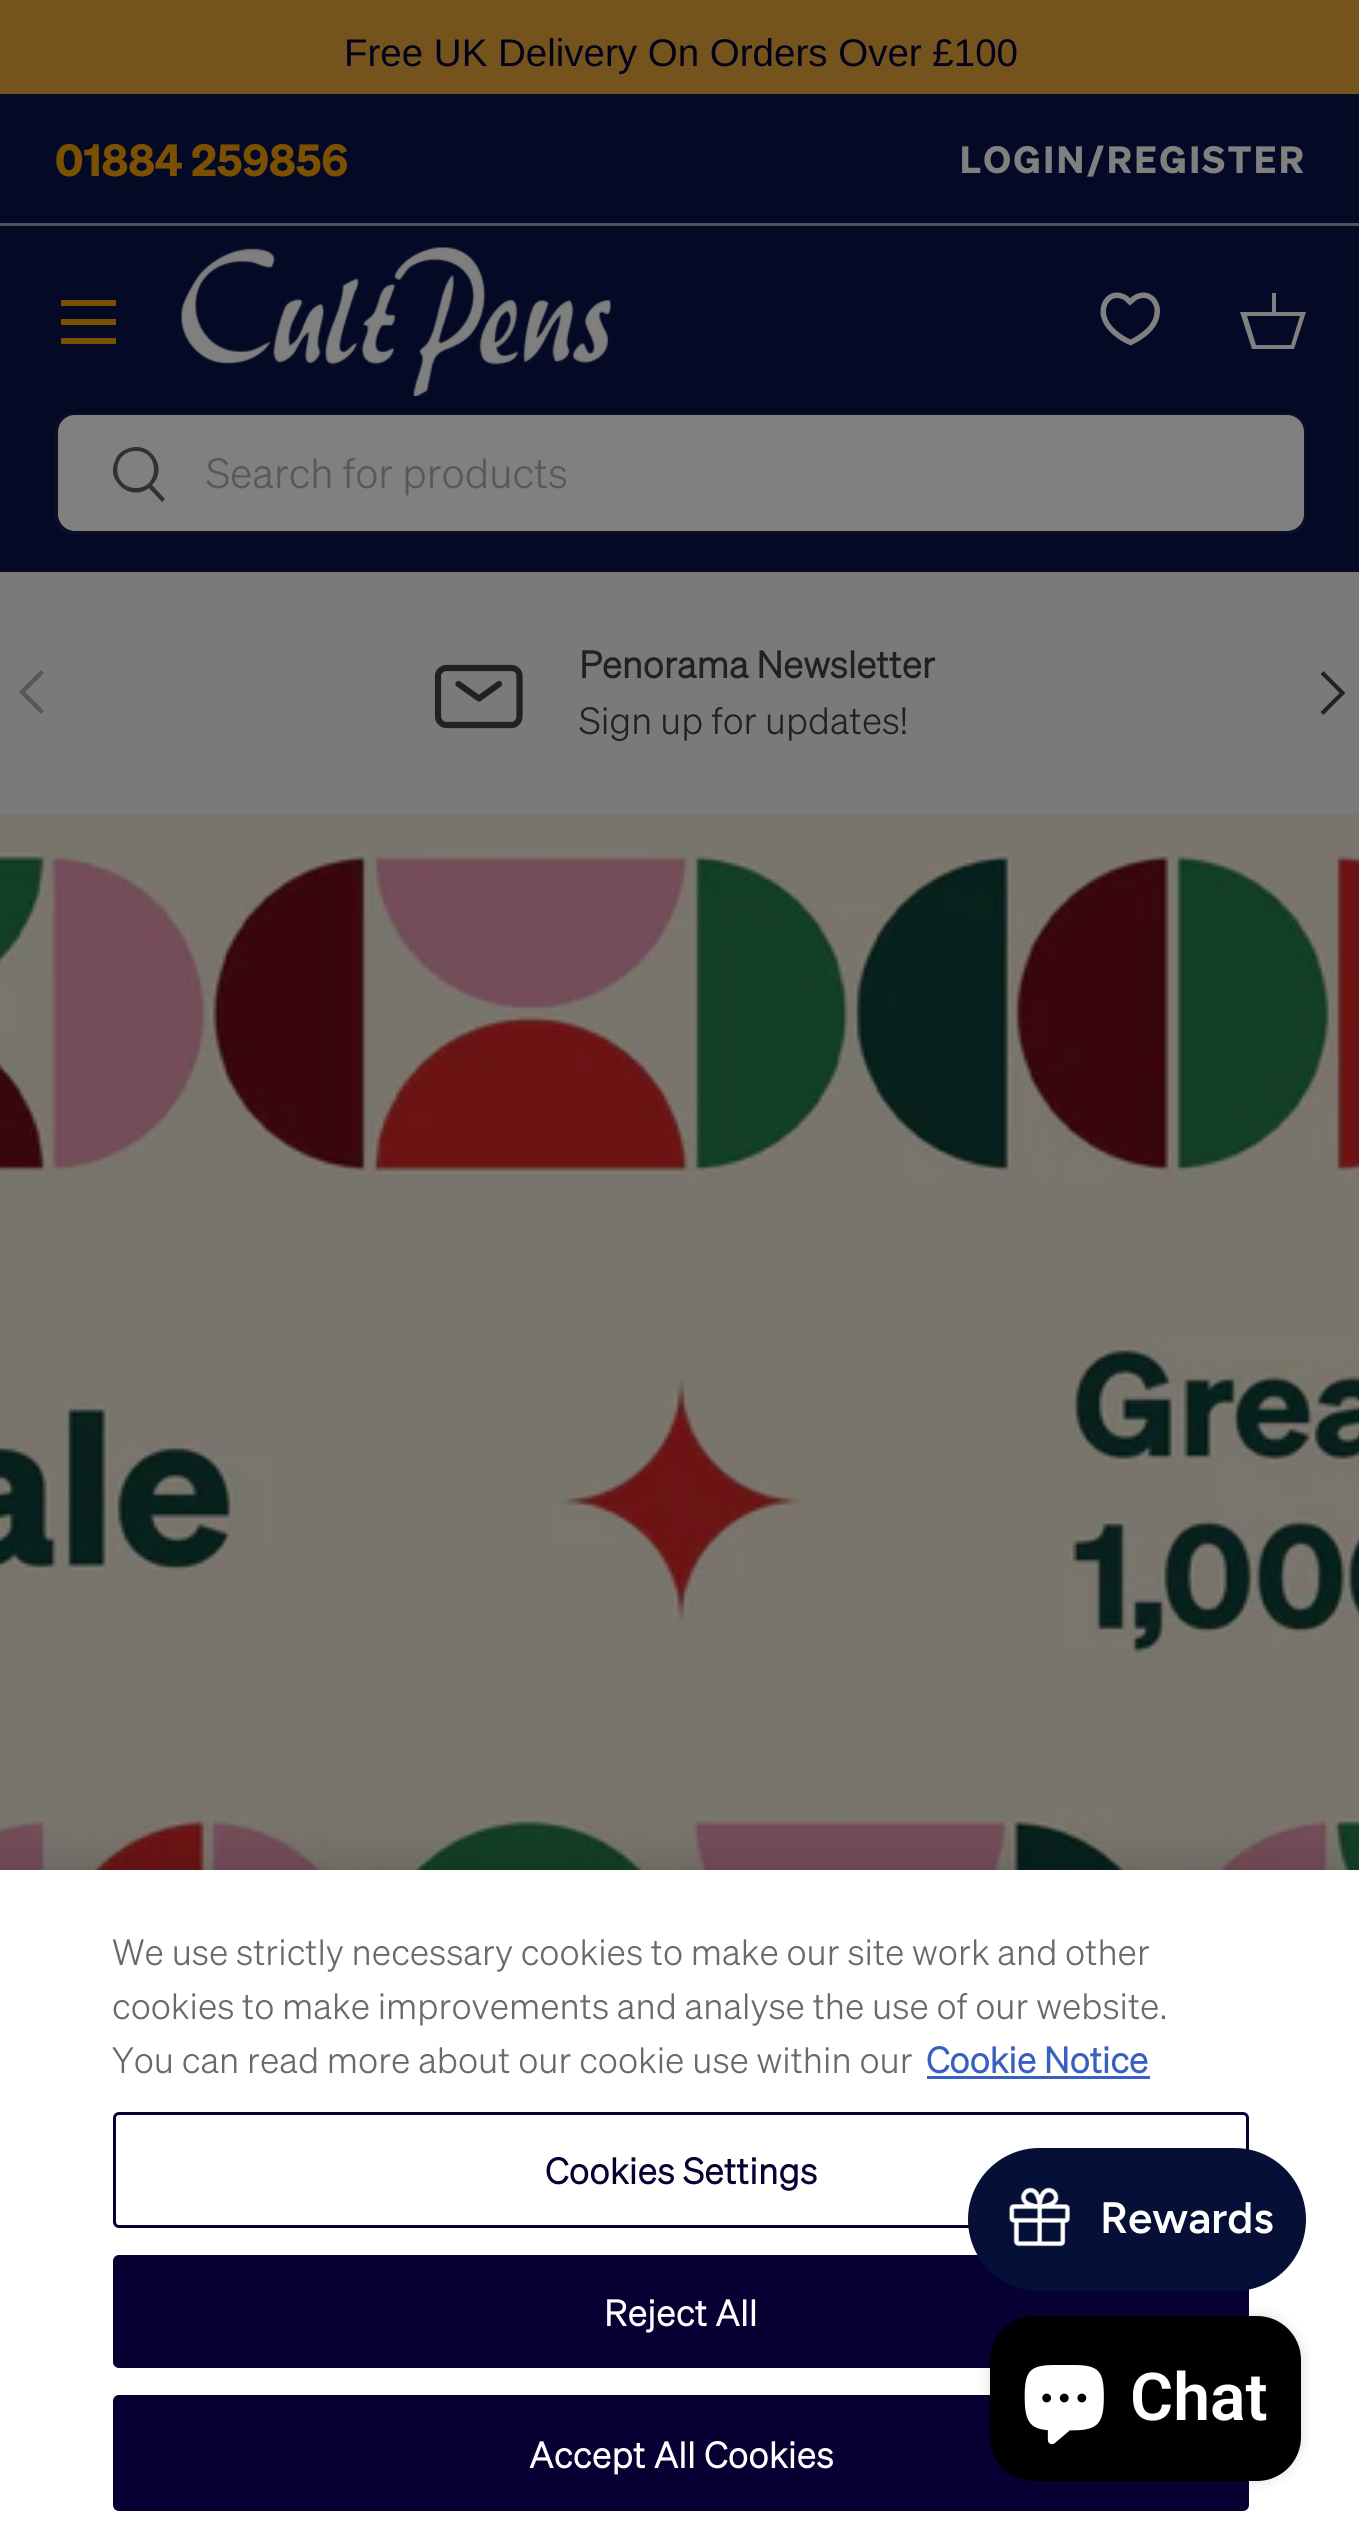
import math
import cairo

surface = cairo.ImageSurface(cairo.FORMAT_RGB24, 1359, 2536)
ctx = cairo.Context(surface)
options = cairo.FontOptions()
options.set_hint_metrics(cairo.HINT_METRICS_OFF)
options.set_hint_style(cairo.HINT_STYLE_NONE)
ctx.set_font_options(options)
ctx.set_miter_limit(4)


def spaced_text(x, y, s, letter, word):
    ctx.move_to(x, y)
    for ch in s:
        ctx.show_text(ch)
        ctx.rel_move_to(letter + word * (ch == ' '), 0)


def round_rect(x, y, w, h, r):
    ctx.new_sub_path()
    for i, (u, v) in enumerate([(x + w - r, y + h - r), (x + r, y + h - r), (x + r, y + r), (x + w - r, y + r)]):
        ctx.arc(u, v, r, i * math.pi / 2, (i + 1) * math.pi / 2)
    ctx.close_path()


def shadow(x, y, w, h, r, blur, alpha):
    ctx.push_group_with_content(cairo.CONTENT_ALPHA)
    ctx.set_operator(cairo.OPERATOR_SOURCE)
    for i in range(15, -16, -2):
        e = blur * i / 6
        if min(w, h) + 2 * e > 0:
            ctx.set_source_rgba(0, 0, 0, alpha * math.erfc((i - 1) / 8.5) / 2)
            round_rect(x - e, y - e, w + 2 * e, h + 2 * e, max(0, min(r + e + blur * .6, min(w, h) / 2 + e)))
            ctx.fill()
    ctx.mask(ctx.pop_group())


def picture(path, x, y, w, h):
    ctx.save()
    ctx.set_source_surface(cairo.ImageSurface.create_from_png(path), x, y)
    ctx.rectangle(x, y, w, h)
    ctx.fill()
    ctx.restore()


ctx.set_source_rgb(0.478, 0.478, 0.478)
ctx.paint()
ctx.set_source_rgb(0.459, 0.325, 0.114)
ctx.rectangle(0, 0, 1359, 94)
ctx.fill()
ctx.select_font_face("Liberation Sans")
ctx.set_font_size(38.5)
ctx.set_source_rgb(0.012, 0.004, 0.098)
ctx.move_to(344, 66)
ctx.show_text("Free UK Delivery On Orders Over £100")
ctx.set_source_rgb(0.016, 0.039, 0.149)
ctx.rectangle(0, 94, 1359, 129)
ctx.fill()
ctx.set_source_rgb(0.31, 0.322, 0.365)
ctx.rectangle(0, 223, 1359, 3)
ctx.fill()
ctx.select_font_face("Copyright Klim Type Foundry", cairo.FONT_SLANT_NORMAL, cairo.FONT_WEIGHT_BOLD)
ctx.set_font_size(44)
ctx.set_source_rgb(0.482, 0.318, 0.004)
ctx.move_to(55, 176)
ctx.show_text("01884 259856")
ctx.set_font_size(37.1)
ctx.set_source_rgb(0.502, 0.502, 0.502)
spaced_text(960, 173, "LOGIN/REGISTER", 2.75, 0)
ctx.set_source_rgb(0.016, 0.039, 0.149)
ctx.rectangle(0, 226, 1359, 343)
ctx.fill()
ctx.set_source_rgb(0.482, 0.318, 0.004)
ctx.rectangle(61, 300, 55, 6)
ctx.fill()
ctx.rectangle(61, 338, 55, 6)
ctx.fill()
ctx.rectangle(61, 319, 55, 6)
ctx.fill()
picture("img1.png", 180, 247, 432, 149)
ctx.new_path()
ctx.move_to(1130.5, 342.5)
ctx.curve_to(1119.5, 337.5, 1107.5, 329, 1104, 317)
ctx.curve_to(1100.5, 304.5, 1109.5, 291, 1123, 296.5)
ctx.curve_to(1126, 297.5, 1128, 300, 1130, 302)
ctx.curve_to(1132.5, 300, 1134.5, 297.5, 1137.5, 296.5)
ctx.curve_to(1149, 291.5, 1159, 302, 1157, 314)
ctx.curve_to(1155.5, 327.5, 1142, 337, 1130.5, 342.5)
ctx.close_path()
ctx.set_source_rgb(0.502, 0.502, 0.502)
ctx.set_line_width(5.5)
ctx.stroke()
ctx.new_path()
ctx.move_to(1272, 312)
ctx.line_to(1272, 293)
ctx.line_to(1276, 293)
ctx.line_to(1276, 312)
ctx.line_to(1306, 312)
ctx.line_to(1294, 349)
ctx.line_to(1252, 349)
ctx.line_to(1240, 312)
ctx.close_path()
ctx.move_to(1247, 316)
ctx.line_to(1256, 345)
ctx.line_to(1291, 345)
ctx.line_to(1300, 316)
ctx.close_path()
ctx.fill()
round_rect(56.5, 414.5, 1248, 118, 15.5)
ctx.set_source_rgb(0.043, 0.063, 0.153)
ctx.set_line_width(3)
ctx.stroke()
ctx.set_source_rgb(0.502, 0.502, 0.502)
round_rect(58, 415, 1246, 116, 17)
ctx.fill()
ctx.set_source_rgb(0.192, 0.192, 0.192)
ctx.new_path()
ctx.move_to(152, 485)
ctx.line_to(165, 499)
ctx.line_to(162, 502)
ctx.line_to(149, 488)
ctx.curve_to(139, 496, 124, 493, 117, 482)
ctx.curve_to(112, 476, 112, 468, 115, 461)
ctx.curve_to(117, 455, 121, 451, 127, 449)
ctx.curve_to(150, 439, 169, 468, 152, 485)
ctx.close_path()
ctx.move_to(136, 488)
ctx.curve_to(160, 488, 160, 451, 136, 451)
ctx.curve_to(111, 451, 111, 488, 136, 488)
ctx.close_path()
ctx.fill()
ctx.select_font_face("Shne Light")
ctx.set_font_size(41.25)
ctx.set_source_rgb(0.345, 0.345, 0.345)
ctx.move_to(206, 488)
ctx.show_text("Search for products")
ctx.set_source_rgb(0.024, 0.043, 0.137)
ctx.rectangle(0, 569, 1359, 3)
ctx.fill()
ctx.new_path()
ctx.move_to(458.5, 684)
ctx.line_to(479, 698.5)
ctx.line_to(499, 684)
ctx.set_source_rgb(0.129, 0.129, 0.129)
ctx.set_line_width(6.2)
ctx.set_line_cap(cairo.LINE_CAP_ROUND)
ctx.set_line_join(cairo.LINE_JOIN_ROUND)
ctx.stroke()
ctx.new_path()
ctx.move_to(438, 716.5)
ctx.line_to(438, 676)
ctx.curve_to(438, 671.5, 442, 668, 446.5, 668)
ctx.line_to(511.5, 668)
ctx.curve_to(516, 668, 519.5, 671.5, 519.5, 676)
ctx.line_to(519.5, 716.5)
ctx.curve_to(519.5, 721, 516, 725, 511.5, 725)
ctx.line_to(446.5, 725)
ctx.curve_to(442, 725, 438, 721, 438, 716.5)
ctx.close_path()
ctx.set_line_cap(cairo.LINE_CAP_BUTT)
ctx.set_line_join(cairo.LINE_JOIN_MITER)
ctx.stroke()
ctx.select_font_face("Shne", cairo.FONT_SLANT_NORMAL, cairo.FONT_WEIGHT_BOLD)
ctx.set_font_size(37.1)
ctx.move_to(579, 678)
ctx.show_text("Penorama Newsletter")
ctx.select_font_face("Shne Light")
ctx.move_to(579, 734)
ctx.show_text("Sign up for updates!")
ctx.set_source_rgb(0.337, 0.337, 0.337)
ctx.new_path()
ctx.move_to(19, 692)
ctx.line_to(41, 670)
ctx.line_to(44, 673)
ctx.line_to(25, 692)
ctx.line_to(44, 711)
ctx.line_to(41, 714)
ctx.close_path()
ctx.fill()
ctx.new_path()
ctx.move_to(1322, 672.5)
ctx.line_to(1342.5, 693)
ctx.line_to(1322, 713.5)
ctx.set_source_rgb(0.129, 0.129, 0.129)
ctx.set_line_width(4.1)
ctx.stroke()
picture("img2.png", 0, 814, 1359, 1056)
ctx.set_source_rgb(0, 0, 0)
shadow(0, 1870, 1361, 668, 0, 25, 0.2)
ctx.set_source_rgb(1, 1, 1)
ctx.rectangle(0, 1870, 1359, 666)
ctx.fill()
ctx.set_font_size(35.75)
ctx.set_source_rgb(0.412, 0.412, 0.412)
ctx.move_to(112, 1965)
ctx.show_text("We use strictly necessary cookies to make our site work and other")
ctx.move_to(112, 2019)
ctx.show_text("cookies to make improvements and analyse the use of our website.")
ctx.move_to(112, 2073)
ctx.show_text("You can read more about our cookie use within our")
ctx.select_font_face("Shne", cairo.FONT_SLANT_NORMAL, cairo.FONT_WEIGHT_BOLD)
ctx.set_source_rgb(0.22, 0.376, 0.745)
ctx.move_to(926, 2073)
ctx.show_text("Cookie Notice")
ctx.rectangle(927, 2076, 223, 3)
ctx.fill()
round_rect(114.5, 2113.5, 1133, 113, 4.5)
ctx.set_source_rgb(0.031, 0, 0.2)
ctx.set_line_width(3)
ctx.stroke()
spaced_text(545, 2184, "Cookies Settings", 0.4, 0)
round_rect(114.5, 2256.5, 1133, 110, 4.5)
ctx.fill_preserve()
ctx.stroke()
ctx.set_source_rgb(1, 1, 1)
spaced_text(604, 2326, "Reject All", 0.4, 0)
ctx.set_source_rgb(0.031, 0, 0.2)
round_rect(114.5, 2396.5, 1133, 113, 4.5)
ctx.fill_preserve()
ctx.stroke()
ctx.set_source_rgb(1, 1, 1)
spaced_text(529, 2468, "Accept All Cookies", 0.4, 0)
ctx.set_source_rgb(0.027, 0.059, 0.212)
round_rect(968, 2148, 338, 143, 71.5)
ctx.fill()
picture("img3.png", 1009, 2187, 61, 60)
ctx.select_font_face("Figtree SemiBold")
ctx.set_font_size(44)
ctx.set_source_rgb(1, 1, 1)
ctx.move_to(1100, 2233)
ctx.show_text("Rewards")
ctx.set_source_rgb(0, 0, 0)
shadow(990, 2316, 311, 165, 44, 7, 0.15)
ctx.set_source_rgb(0, 0, 0)
round_rect(990, 2316, 311, 165, 44)
ctx.fill()
picture("img4.png", 1024, 2365, 80, 80)
ctx.select_font_face("Roboto SemiBold")
ctx.set_font_size(66)
ctx.set_source_rgb(1, 1, 1)
ctx.move_to(1130, 2420)
ctx.show_text("Chat")
surface.write_to_png("page.png")
